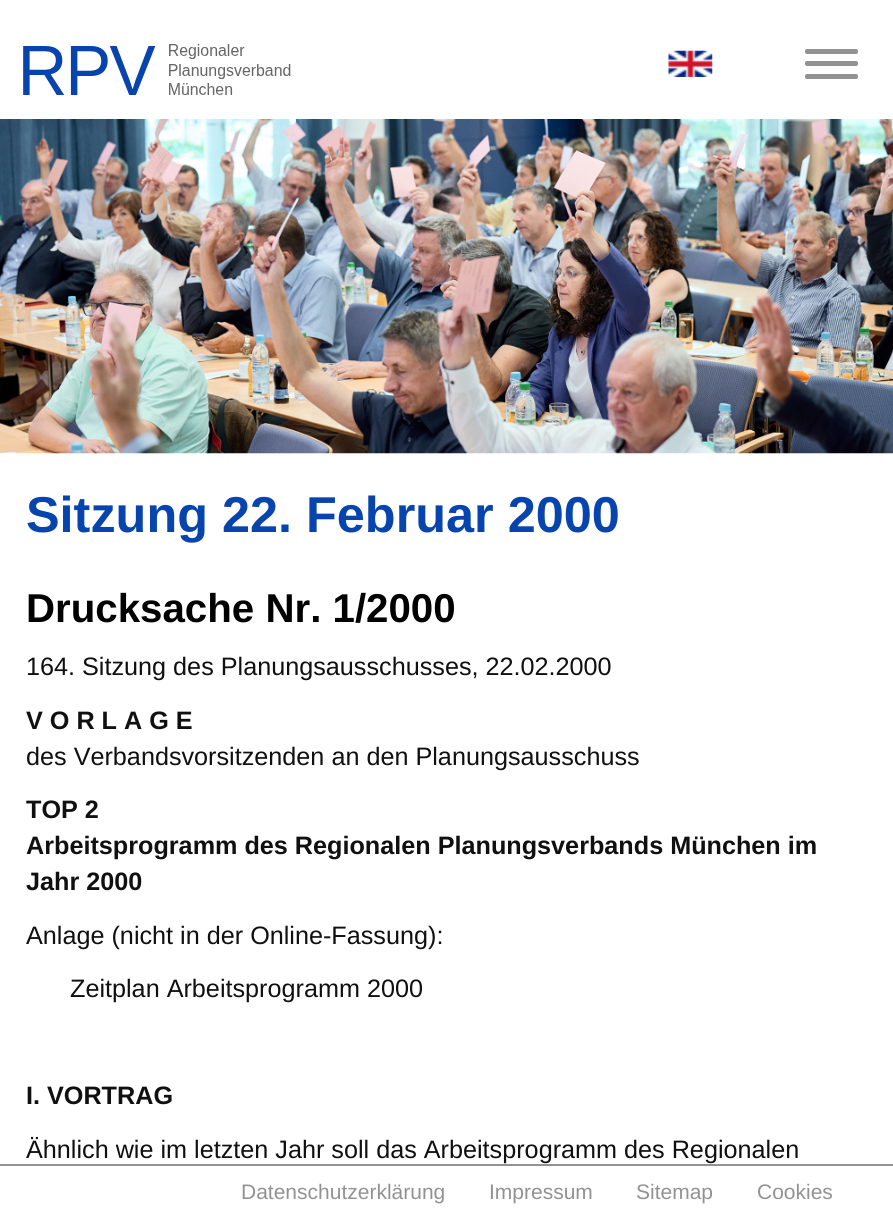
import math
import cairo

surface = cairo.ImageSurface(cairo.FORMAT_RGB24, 893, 1215)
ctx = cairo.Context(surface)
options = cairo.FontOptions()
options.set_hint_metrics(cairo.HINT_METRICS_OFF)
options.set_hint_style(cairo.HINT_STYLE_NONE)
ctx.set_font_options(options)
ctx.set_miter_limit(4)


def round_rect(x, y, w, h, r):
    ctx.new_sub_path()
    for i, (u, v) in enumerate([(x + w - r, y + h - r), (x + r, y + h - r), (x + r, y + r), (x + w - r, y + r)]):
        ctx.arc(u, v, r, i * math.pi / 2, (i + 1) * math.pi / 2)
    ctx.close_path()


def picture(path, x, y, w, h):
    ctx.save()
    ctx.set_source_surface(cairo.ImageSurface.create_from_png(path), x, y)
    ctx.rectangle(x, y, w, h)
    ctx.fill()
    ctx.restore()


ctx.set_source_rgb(1, 1, 1)
ctx.paint()
picture("img1.png", 23, 44, 268, 51)
picture("img2.png", 668, 50, 45, 27)
ctx.set_source_rgb(0.576, 0.573, 0.573)
round_rect(805, 49, 53, 5, 2)
ctx.fill()
round_rect(805, 61, 53, 5, 2)
ctx.fill()
round_rect(805, 74, 53, 5, 2)
ctx.fill()
picture("img3.png", 0, 119, 893, 335)
ctx.select_font_face("Liberation Sans", cairo.FONT_SLANT_NORMAL, cairo.FONT_WEIGHT_BOLD)
ctx.set_font_size(50.4)
ctx.set_source_rgb(0.031, 0.267, 0.678)
ctx.move_to(26, 532)
ctx.show_text("Sitzung 22. Februar 2000")
ctx.set_font_size(40.25)
ctx.set_source_rgb(0, 0, 0)
ctx.move_to(26, 622)
ctx.show_text("Drucksache Nr. 1/2000")
ctx.select_font_face("Liberation Sans")
ctx.set_font_size(25.2)
ctx.set_source_rgb(0.063, 0.063, 0.063)
ctx.move_to(26, 675)
ctx.show_text("164. Sitzung des Planungsausschusses, 22.02.2000")
ctx.select_font_face("Liberation Sans", cairo.FONT_SLANT_NORMAL, cairo.FONT_WEIGHT_BOLD)
ctx.move_to(26, 729)
ctx.show_text("V O R L A G E")
ctx.select_font_face("Liberation Sans")
ctx.move_to(26, 765)
ctx.show_text("des Verbandsvorsitzenden an den Planungsausschuss")
ctx.select_font_face("Liberation Sans", cairo.FONT_SLANT_NORMAL, cairo.FONT_WEIGHT_BOLD)
ctx.move_to(26, 818)
ctx.show_text("TOP 2")
ctx.move_to(26, 854)
ctx.show_text("Arbeitsprogramm des Regionalen Planungsverbands München im")
ctx.move_to(26, 890)
ctx.show_text("Jahr 2000")
ctx.select_font_face("Liberation Sans")
ctx.move_to(26, 944)
ctx.show_text("Anlage (nicht in der Online-Fassung):")
ctx.move_to(70, 997)
ctx.show_text("Zeitplan Arbeitsprogramm 2000")
ctx.select_font_face("Liberation Sans", cairo.FONT_SLANT_NORMAL, cairo.FONT_WEIGHT_BOLD)
ctx.move_to(26, 1104)
ctx.show_text("I. VORTRAG")
ctx.select_font_face("Liberation Sans")
ctx.move_to(26, 1158)
ctx.show_text("Ähnlich wie im letzten Jahr soll das Arbeitsprogramm des Regionalen")
ctx.set_source_rgb(0.576, 0.573, 0.573)
ctx.rectangle(0, 1164, 893, 2)
ctx.fill()
ctx.set_font_size(21)
ctx.move_to(241, 1199)
ctx.show_text("Datenschutzerklärung")
ctx.move_to(489, 1199)
ctx.show_text("Impressum")
ctx.move_to(636, 1199)
ctx.show_text("Sitemap")
ctx.move_to(757, 1199)
ctx.show_text("Cookies")
surface.write_to_png("page.png")
